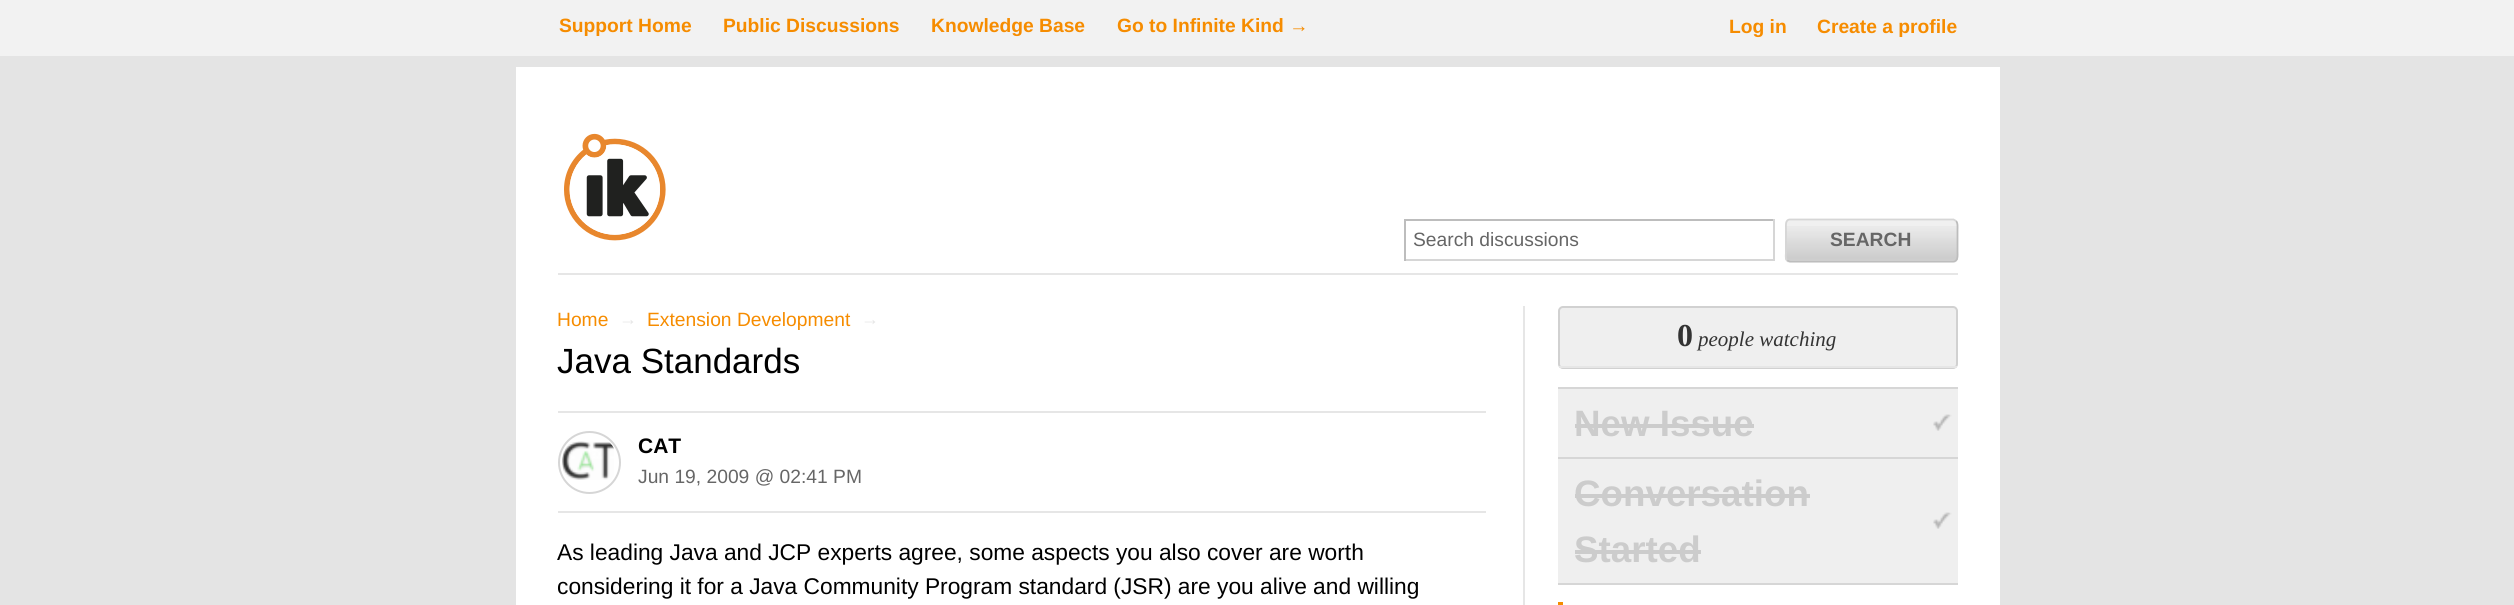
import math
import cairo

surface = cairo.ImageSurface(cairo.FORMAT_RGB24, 2514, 605)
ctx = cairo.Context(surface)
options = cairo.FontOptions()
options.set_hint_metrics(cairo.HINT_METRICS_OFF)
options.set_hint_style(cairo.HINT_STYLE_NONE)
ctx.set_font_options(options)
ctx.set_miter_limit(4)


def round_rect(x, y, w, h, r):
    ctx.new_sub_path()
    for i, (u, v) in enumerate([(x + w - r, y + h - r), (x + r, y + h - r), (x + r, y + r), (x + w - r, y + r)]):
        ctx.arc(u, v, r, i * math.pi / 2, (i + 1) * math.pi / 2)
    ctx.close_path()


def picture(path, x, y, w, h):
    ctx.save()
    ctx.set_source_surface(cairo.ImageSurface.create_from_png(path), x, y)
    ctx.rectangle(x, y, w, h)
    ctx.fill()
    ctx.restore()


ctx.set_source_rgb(0.894, 0.894, 0.894)
ctx.paint()
ctx.set_source_rgb(0.949, 0.949, 0.949)
ctx.rectangle(0, 0, 2514, 56)
ctx.fill()
ctx.select_font_face("Liberation Sans", cairo.FONT_SLANT_NORMAL, cairo.FONT_WEIGHT_BOLD)
ctx.set_font_size(19.25)
ctx.set_source_rgb(0.961, 0.549, 0)
ctx.move_to(559, 32)
ctx.show_text("Support Home")
ctx.move_to(723, 32)
ctx.show_text("Public Discussions")
ctx.move_to(931, 32)
ctx.show_text("Knowledge Base")
ctx.move_to(1117, 32)
ctx.show_text("Go to Infinite Kind →")
ctx.move_to(1729, 33)
ctx.show_text("Log in")
ctx.move_to(1817, 33)
ctx.show_text("Create a profile")
ctx.set_source_rgb(1, 1, 1)
ctx.rectangle(516, 67, 1484, 538)
ctx.fill()
ctx.set_source_rgb(0.902, 0.902, 0.902)
ctx.rectangle(558, 273, 1400, 2)
ctx.fill()
picture("img1.png", 564, 133, 102, 108)
ctx.set_source_rgb(0.741, 0.741, 0.741)
ctx.rectangle(1404, 219, 371, 2)
ctx.fill()
ctx.set_source_rgb(0.839, 0.839, 0.839)
ctx.rectangle(1773, 219, 2, 42)
ctx.fill()
ctx.rectangle(1404, 259, 371, 2)
ctx.fill()
ctx.set_source_rgb(0.741, 0.741, 0.741)
ctx.rectangle(1404, 219, 2, 42)
ctx.fill()
ctx.select_font_face("Liberation Sans")
ctx.set_source_rgb(0.4, 0.4, 0.4)
ctx.move_to(1413, 246)
ctx.show_text("Search discussions")
ctx.set_source_rgb(0.941, 0.941, 0.941)
round_rect(1785, 219, 173, 44, 5)
ctx.fill()
picture("img2.png", 1785, 226, 173, 35)
ctx.new_path()
ctx.move_to(1956, 221)
ctx.curve_to(1958, 223, 1957.5, 227, 1957.5, 229.5)
ctx.line_to(1957.5, 251.5)
ctx.curve_to(1957.5, 255, 1958.5, 261.5, 1953, 261.5)
ctx.line_to(1790, 261.5)
ctx.line_to(1787, 260.5)
ctx.set_source_rgb(0.741, 0.741, 0.741)
ctx.set_line_width(1.8)
ctx.stroke()
ctx.new_path()
ctx.move_to(1787, 260.5)
ctx.curve_to(1785, 258, 1786, 254, 1786, 251.5)
ctx.line_to(1786, 229.5)
ctx.curve_to(1786, 226, 1785, 219.5, 1790, 219.5)
ctx.line_to(1953.5, 219.5)
ctx.line_to(1956, 221)
ctx.set_source_rgb(0.839, 0.839, 0.839)
ctx.stroke()
ctx.select_font_face("Liberation Sans", cairo.FONT_SLANT_NORMAL, cairo.FONT_WEIGHT_BOLD)
ctx.set_source_rgb(0.4, 0.4, 0.4)
ctx.move_to(1830, 246)
ctx.show_text("SEARCH")
ctx.select_font_face("Liberation Sans")
ctx.set_source_rgb(0.961, 0.549, 0)
ctx.move_to(557, 326)
ctx.show_text("Home")
ctx.set_font_size(18)
ctx.set_source_rgb(0.902, 0.902, 0.902)
ctx.move_to(619, 325)
ctx.show_text("→")
ctx.set_font_size(19.25)
ctx.set_source_rgb(0.961, 0.549, 0)
ctx.move_to(647, 326)
ctx.show_text("Extension Development")
ctx.set_font_size(18)
ctx.set_source_rgb(0.902, 0.902, 0.902)
ctx.move_to(861, 325)
ctx.show_text("→")
ctx.set_font_size(35)
ctx.set_source_rgb(0, 0, 0)
ctx.move_to(557, 373)
ctx.show_text("Java Standards")
ctx.set_source_rgb(0.902, 0.902, 0.902)
ctx.rectangle(558, 411, 928, 2)
ctx.fill()
ctx.rectangle(558, 511, 928, 2)
ctx.fill()
ctx.arc(589.5, 462.5, 30.5, 0, 2 * math.pi)
ctx.set_source_rgb(0.839, 0.839, 0.839)
ctx.set_line_width(2)
ctx.stroke()
picture("img3.png", 562, 441, 52, 39)
ctx.select_font_face("Liberation Sans", cairo.FONT_SLANT_NORMAL, cairo.FONT_WEIGHT_BOLD)
ctx.set_font_size(21)
ctx.set_source_rgb(0, 0, 0)
ctx.move_to(638, 453)
ctx.show_text("CAT")
ctx.select_font_face("Liberation Sans")
ctx.set_font_size(19.25)
ctx.set_source_rgb(0.4, 0.4, 0.4)
ctx.move_to(638, 483)
ctx.show_text("Jun 19, 2009 @ 02:41 PM")
ctx.set_font_size(22.75)
ctx.set_source_rgb(0, 0, 0)
ctx.move_to(557, 560)
ctx.show_text("As leading Java and JCP experts agree, some aspects you also cover are worth")
ctx.move_to(557, 594)
ctx.show_text("considering it for a Java Community Program standard (JSR) are you alive and willing")
ctx.set_source_rgb(0.902, 0.902, 0.902)
ctx.rectangle(1523, 306, 2, 299)
ctx.fill()
ctx.set_source_rgb(0.937, 0.937, 0.937)
round_rect(1559, 307, 398, 61, 4)
ctx.fill_preserve()
ctx.set_source_rgb(0.82, 0.82, 0.82)
ctx.stroke()
ctx.set_source_rgb(0.902, 0.902, 0.902)
ctx.rectangle(1559, 366, 398, 2)
ctx.fill()
ctx.select_font_face("Liberation Serif", cairo.FONT_SLANT_NORMAL, cairo.FONT_WEIGHT_BOLD)
ctx.set_font_size(32)
ctx.set_source_rgb(0.2, 0.2, 0.2)
ctx.move_to(1677, 346)
ctx.show_text("0")
ctx.select_font_face("Liberation Serif", cairo.FONT_SLANT_ITALIC)
ctx.set_font_size(21)
ctx.move_to(1698, 346)
ctx.show_text("people watching")
ctx.set_source_rgb(0.839, 0.839, 0.839)
ctx.rectangle(1558, 387, 400, 2)
ctx.fill()
ctx.set_source_rgb(0.937, 0.937, 0.937)
ctx.rectangle(1558, 389, 400, 68)
ctx.fill()
picture("img4.png", 1933, 414, 19, 17)
ctx.set_source_rgb(0.839, 0.839, 0.839)
ctx.rectangle(1558, 457, 400, 2)
ctx.fill()
ctx.select_font_face("Liberation Sans", cairo.FONT_SLANT_NORMAL, cairo.FONT_WEIGHT_BOLD)
ctx.set_font_size(36.75)
ctx.set_source_rgb(0.8, 0.8, 0.8)
ctx.move_to(1574, 436)
ctx.show_text("New Issue")
ctx.rectangle(1575, 424, 179, 4)
ctx.fill()
ctx.set_source_rgb(0.937, 0.937, 0.937)
ctx.rectangle(1558, 459, 400, 124)
ctx.fill()
picture("img4.png", 1933, 512, 19, 17)
ctx.set_source_rgb(0.839, 0.839, 0.839)
ctx.rectangle(1558, 583, 400, 2)
ctx.fill()
ctx.set_source_rgb(0.8, 0.8, 0.8)
ctx.move_to(1574, 506)
ctx.show_text("Conversation")
ctx.rectangle(1575, 494, 235, 4)
ctx.fill()
ctx.move_to(1574, 562)
ctx.show_text("Started")
ctx.rectangle(1575, 550, 126, 4)
ctx.fill()
ctx.set_source_rgb(0.957, 0.549, 0)
ctx.rectangle(1558, 602, 5, 3)
ctx.fill()
surface.write_to_png("page.png")
